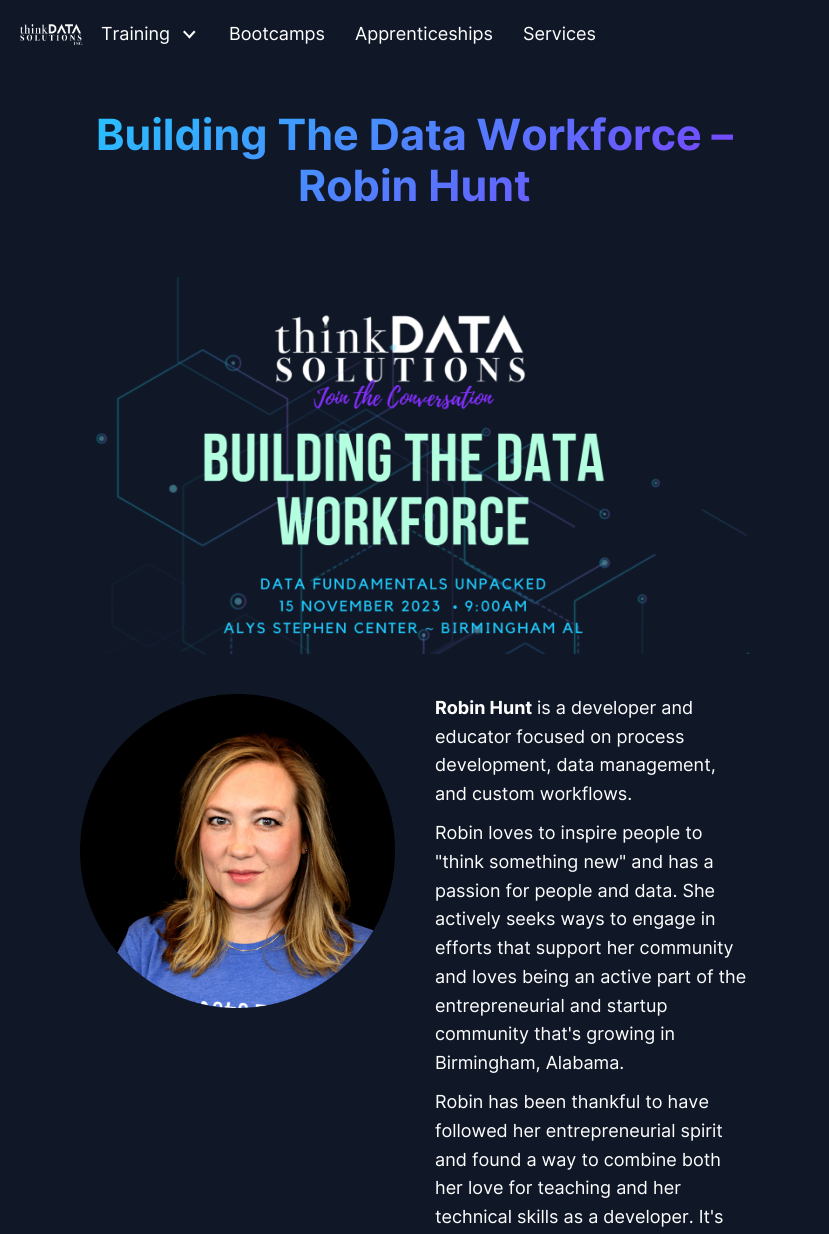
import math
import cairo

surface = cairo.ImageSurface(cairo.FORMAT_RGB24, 829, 1234)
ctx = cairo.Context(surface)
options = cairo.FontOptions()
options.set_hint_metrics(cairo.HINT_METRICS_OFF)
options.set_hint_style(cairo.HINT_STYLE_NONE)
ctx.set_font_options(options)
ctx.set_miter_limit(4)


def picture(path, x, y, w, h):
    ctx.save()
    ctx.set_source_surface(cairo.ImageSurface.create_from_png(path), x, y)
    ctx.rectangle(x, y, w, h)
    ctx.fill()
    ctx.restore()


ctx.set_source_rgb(0.063, 0.094, 0.157)
ctx.paint()
picture("img1.png", 20, 24, 63, 21)
ctx.select_font_face("Inter")
ctx.set_font_size(18)
ctx.set_source_rgb(1, 1, 1)
ctx.move_to(101, 40)
ctx.show_text("Training")
ctx.new_path()
ctx.move_to(194, 30.5)
ctx.line_to(195.5, 32)
ctx.line_to(189.5, 38.5)
ctx.line_to(188, 37)
ctx.close_path()
ctx.fill()
ctx.new_path()
ctx.move_to(184.5, 30.5)
ctx.line_to(190.5, 37)
ctx.line_to(189.5, 38.5)
ctx.line_to(183, 32)
ctx.close_path()
ctx.fill()
ctx.move_to(229, 40)
ctx.show_text("Bootcamps")
ctx.move_to(355, 40)
ctx.show_text("Apprenticeships")
ctx.move_to(523, 40)
ctx.show_text("Services")
ctx.select_font_face("Inter", cairo.FONT_SLANT_NORMAL, cairo.FONT_WEIGHT_BOLD)
ctx.set_font_size(43)
gradient = cairo.LinearGradient(267, -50, 562, 371)
gradient.add_color_stop_rgba(0, 0.125, 0.8, 0.996, 1)
gradient.add_color_stop_rgba(1, 0.522, 0.184, 0.996, 1)
ctx.set_source(gradient)
ctx.move_to(96, 150)
ctx.show_text("Building The Data Workforce –")
ctx.move_to(298, 201)
ctx.show_text("Robin Hunt")
picture("img2.png", 96, 277, 653, 377)
picture("img3.png", 80, 694, 315, 314)
ctx.set_font_size(18)
ctx.set_source_rgb(1, 1, 1)
ctx.move_to(435, 714)
ctx.show_text("Robin Hunt")
ctx.select_font_face("Inter")
ctx.move_to(537, 714)
ctx.show_text("is a developer and")
ctx.move_to(435, 743)
ctx.show_text("educator focused on process")
ctx.move_to(435, 771)
ctx.show_text("development, data management,")
ctx.move_to(435, 800)
ctx.show_text("and custom workflows.")
ctx.move_to(435, 839)
ctx.show_text("Robin loves to inspire people to")
ctx.move_to(435, 868)
ctx.show_text("\"think something new\" and has a")
ctx.move_to(435, 897)
ctx.show_text("passion for people and data. She")
ctx.move_to(435, 925)
ctx.show_text("actively seeks ways to engage in")
ctx.move_to(435, 954)
ctx.show_text("efforts that support her community")
ctx.move_to(435, 983)
ctx.show_text("and loves being an active part of the")
ctx.move_to(435, 1012)
ctx.show_text("entrepreneurial and startup")
ctx.move_to(435, 1040)
ctx.show_text("community that's growing in")
ctx.move_to(435, 1069)
ctx.show_text("Birmingham, Alabama.")
ctx.move_to(435, 1108)
ctx.show_text("Robin has been thankful to have")
ctx.move_to(435, 1137)
ctx.show_text("followed her entrepreneurial spirit")
ctx.move_to(435, 1166)
ctx.show_text("and found a way to combine both")
ctx.move_to(435, 1194)
ctx.show_text("her love for teaching and her")
ctx.move_to(435, 1223)
ctx.show_text("technical skills as a developer. It's")
surface.write_to_png("page.png")
